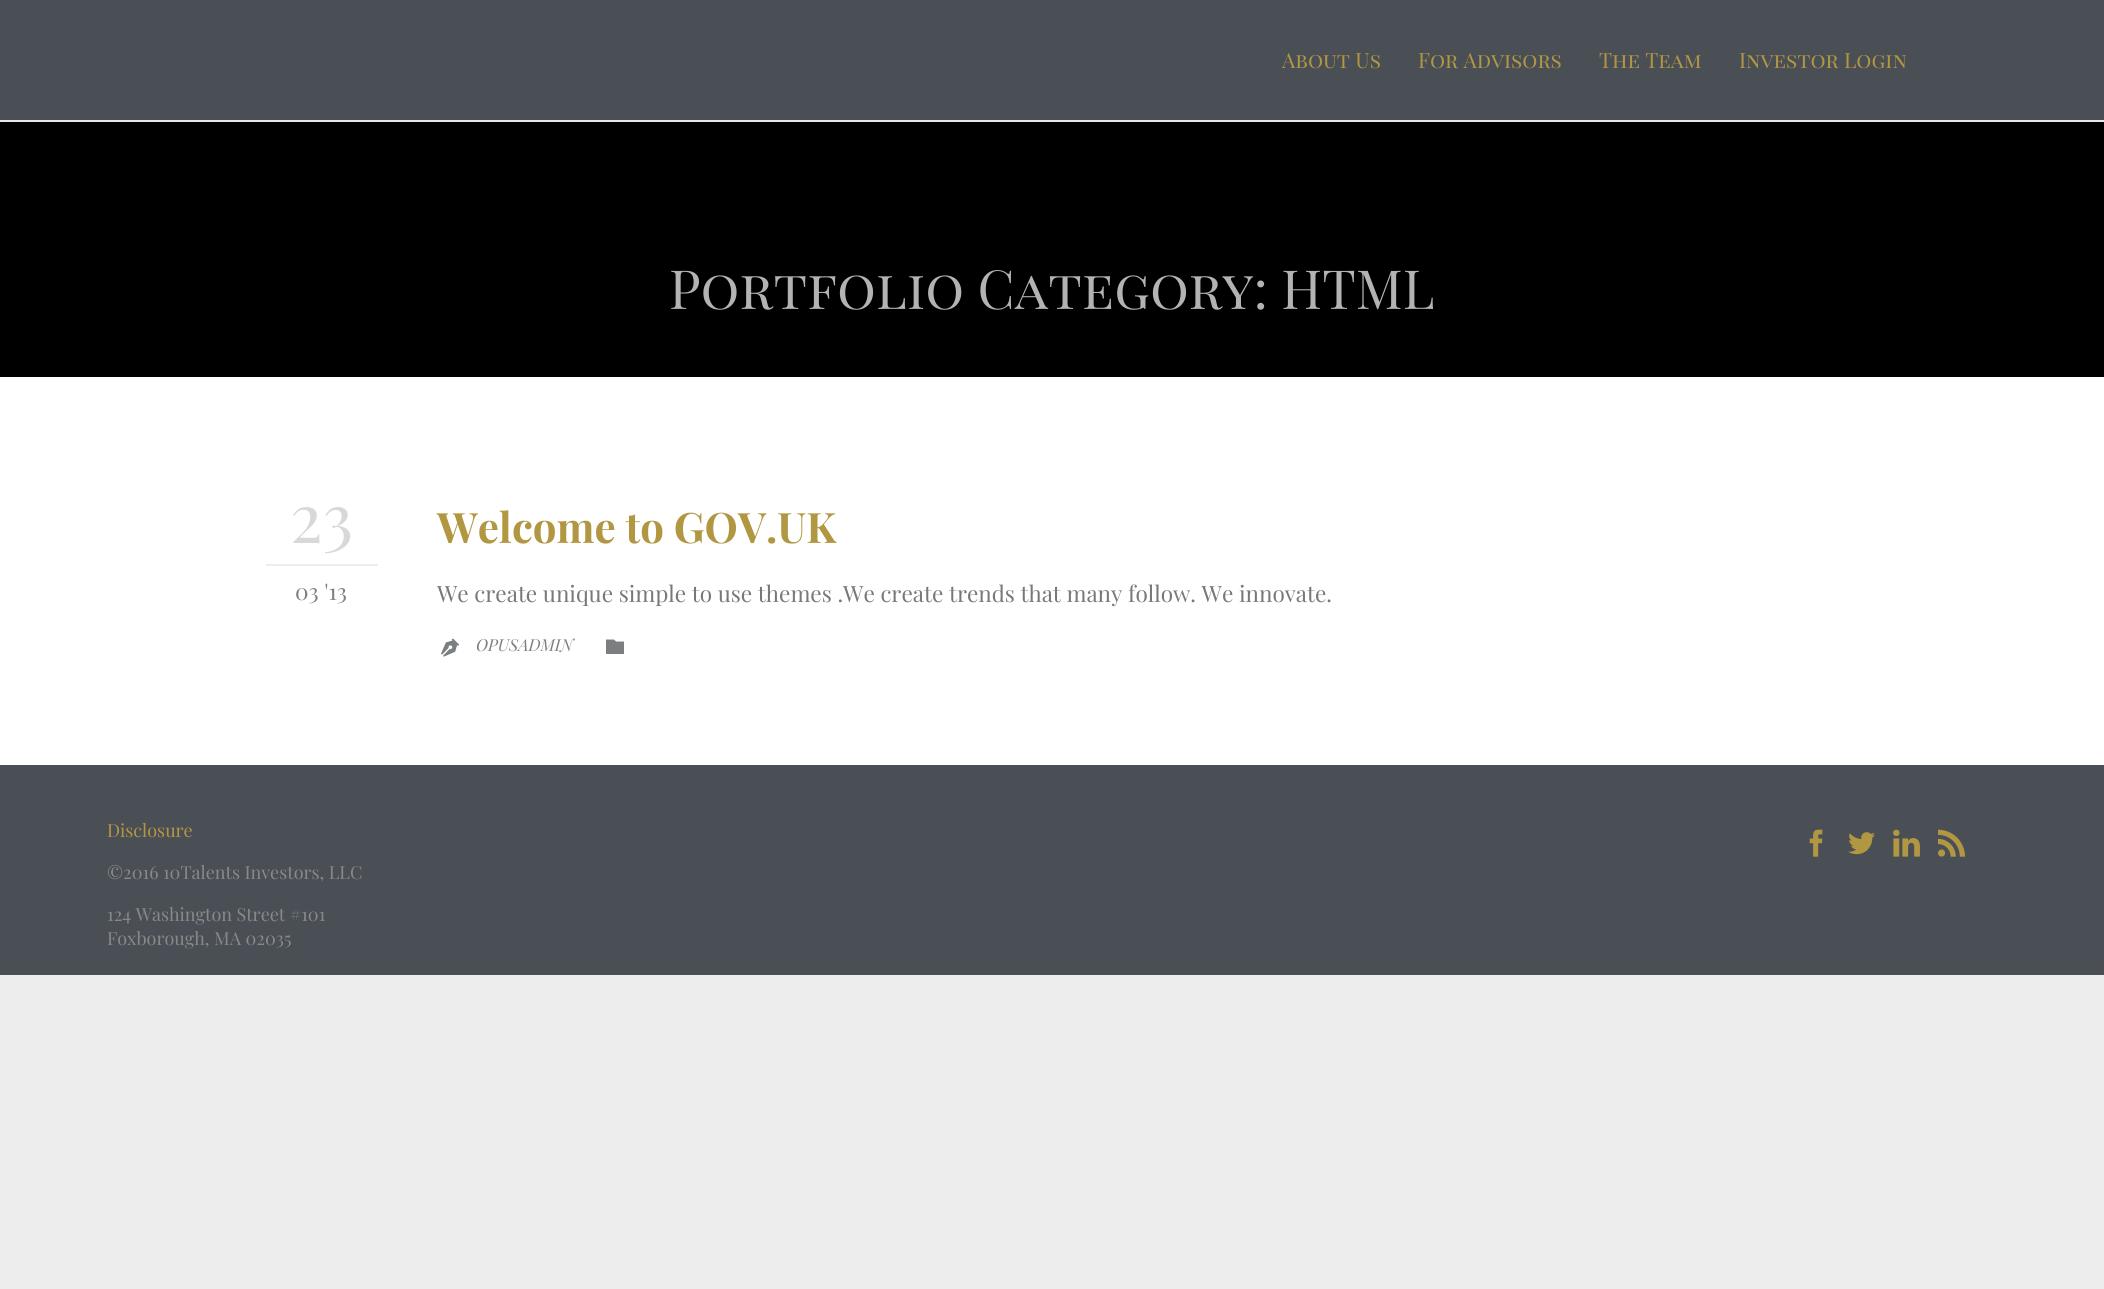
import math
import cairo

surface = cairo.ImageSurface(cairo.FORMAT_RGB24, 2104, 1289)
ctx = cairo.Context(surface)
options = cairo.FontOptions()
options.set_hint_metrics(cairo.HINT_METRICS_OFF)
options.set_hint_style(cairo.HINT_STYLE_NONE)
ctx.set_font_options(options)
ctx.set_miter_limit(4)


def picture(path, x, y, w, h):
    ctx.save()
    ctx.set_source_surface(cairo.ImageSurface.create_from_png(path), x, y)
    ctx.rectangle(x, y, w, h)
    ctx.fill()
    ctx.restore()


ctx.set_source_rgb(0.929, 0.929, 0.929)
ctx.paint()
ctx.set_source_rgb(0.29, 0.31, 0.333)
ctx.rectangle(0, 0, 2104, 120)
ctx.fill()
ctx.set_source_rgb(0.91, 0.91, 0.91)
ctx.rectangle(0, 120, 2104, 2)
ctx.fill()
ctx.select_font_face("Playfair Display SC")
ctx.set_font_size(21)
ctx.set_source_rgb(0.698, 0.592, 0.263)
ctx.move_to(1282, 68)
ctx.show_text("About Us")
ctx.move_to(1418, 68)
ctx.show_text("For Advisors")
ctx.move_to(1599, 68)
ctx.show_text("The Team")
ctx.move_to(1739, 68)
ctx.show_text("Investor Login")
ctx.set_source_rgb(0, 0, 0)
ctx.rectangle(0, 122, 2104, 255)
ctx.fill()
ctx.set_font_size(54)
ctx.set_source_rgb(0.702, 0.702, 0.702)
ctx.move_to(669, 309)
ctx.show_text("Portfolio Category: HTML")
ctx.set_source_rgb(1, 1, 1)
ctx.rectangle(0, 377, 2104, 388)
ctx.fill()
ctx.set_source_rgb(0.929, 0.929, 0.929)
ctx.rectangle(266, 564, 112, 2)
ctx.fill()
ctx.set_font_size(68)
ctx.set_source_rgb(0.847, 0.847, 0.847)
ctx.move_to(290, 543)
ctx.show_text("23")
ctx.select_font_face("Playfair Display")
ctx.set_font_size(22.5)
ctx.set_source_rgb(0.486, 0.498, 0.51)
ctx.move_to(295, 600)
ctx.show_text("03 '13")
ctx.select_font_face("Playfair Display", cairo.FONT_SLANT_NORMAL, cairo.FONT_WEIGHT_BOLD)
ctx.set_font_size(42)
ctx.set_source_rgb(0.698, 0.592, 0.263)
ctx.move_to(437, 543)
ctx.show_text("Welcome to GOV.UK")
ctx.select_font_face("Playfair Display")
ctx.set_font_size(22.5)
ctx.set_source_rgb(0.471, 0.471, 0.471)
ctx.move_to(437, 602)
ctx.show_text("We create unique simple to use themes .We create trends that many follow. We innovate.")
picture("img1.png", 441, 638, 18, 19)
ctx.select_font_face("Playfair Display", cairo.FONT_SLANT_ITALIC)
ctx.set_font_size(16.5)
ctx.set_source_rgb(0.486, 0.498, 0.51)
ctx.move_to(476, 651)
ctx.show_text("OPUSADMIN")
ctx.new_path()
ctx.move_to(614, 639.5)
ctx.line_to(616, 641.5)
ctx.line_to(624, 641.5)
ctx.line_to(624, 654)
ctx.line_to(606, 654)
ctx.line_to(606, 639.5)
ctx.close_path()
ctx.fill()
ctx.set_source_rgb(0.29, 0.31, 0.333)
ctx.rectangle(0, 765, 2104, 210)
ctx.fill()
ctx.select_font_face("Playfair Display")
ctx.set_font_size(18)
ctx.set_source_rgb(0.698, 0.592, 0.263)
ctx.move_to(107, 837)
ctx.show_text("Disclosure")
ctx.set_source_rgb(0.537, 0.537, 0.537)
ctx.move_to(107, 879)
ctx.show_text("©2016 10Talents Investors, LLC")
ctx.move_to(107, 921)
ctx.show_text("124 Washington Street #101")
ctx.move_to(107, 945)
ctx.show_text("Foxborough, MA 02035")
picture("img2.png", 1809, 829, 14, 28)
picture("img3.png", 1848, 832, 27, 23)
picture("img4.png", 1893, 829, 27, 28)
picture("img5.png", 1938, 829, 27, 28)
surface.write_to_png("page.png")
